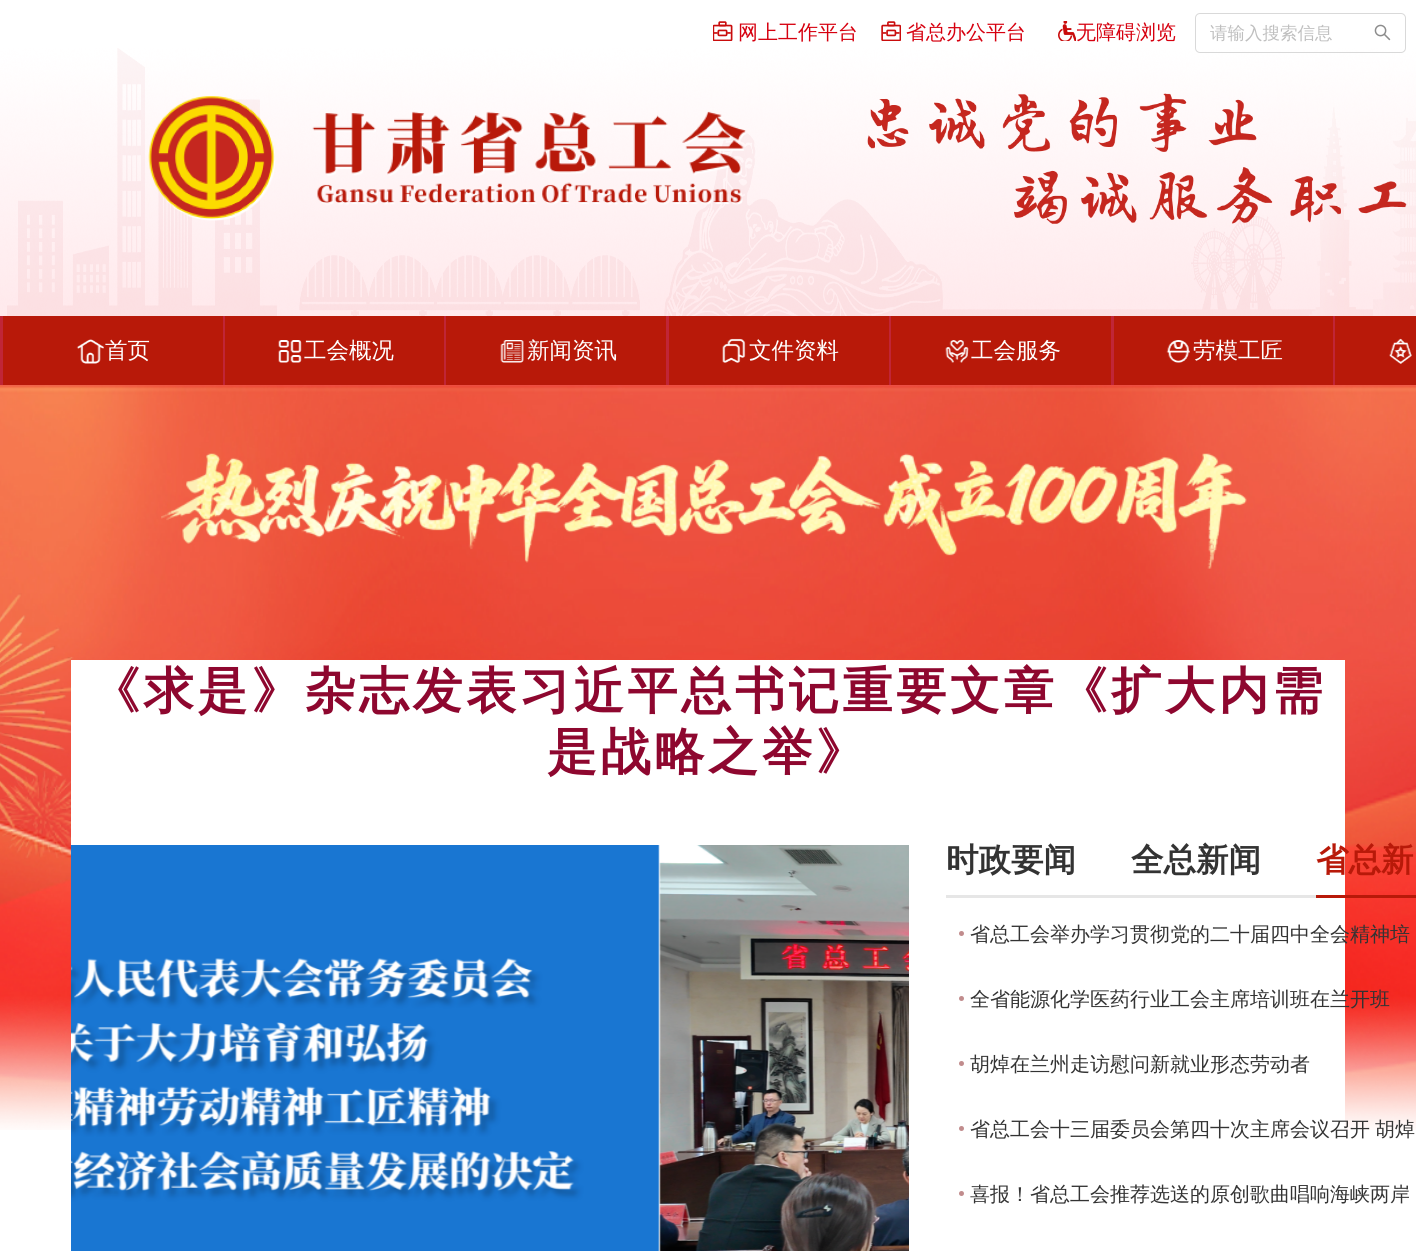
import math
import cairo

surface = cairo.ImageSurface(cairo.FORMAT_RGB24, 1416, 1251)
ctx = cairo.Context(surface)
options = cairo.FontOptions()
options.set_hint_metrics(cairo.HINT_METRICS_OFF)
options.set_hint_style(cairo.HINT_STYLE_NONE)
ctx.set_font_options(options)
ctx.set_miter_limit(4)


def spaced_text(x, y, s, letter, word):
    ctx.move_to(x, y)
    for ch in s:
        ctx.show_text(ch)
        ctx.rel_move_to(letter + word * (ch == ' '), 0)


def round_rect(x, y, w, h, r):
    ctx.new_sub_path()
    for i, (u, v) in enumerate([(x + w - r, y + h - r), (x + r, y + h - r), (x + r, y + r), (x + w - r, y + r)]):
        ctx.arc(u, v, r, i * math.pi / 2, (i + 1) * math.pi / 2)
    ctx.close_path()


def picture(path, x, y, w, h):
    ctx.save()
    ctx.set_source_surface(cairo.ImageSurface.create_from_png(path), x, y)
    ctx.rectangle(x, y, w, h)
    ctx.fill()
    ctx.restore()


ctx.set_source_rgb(1, 1, 1)
ctx.paint()
picture("img1.png", 0, 48, 1416, 268)
picture("img2.png", 713, 21, 20, 20)
ctx.select_font_face("WenQuanYi Zen Hei Medium")
ctx.set_font_size(20)
ctx.set_source_rgb(0.839, 0, 0.059)
ctx.move_to(738, 39)
ctx.show_text("网上工作平台")
picture("img3.png", 881, 21, 20, 20)
ctx.move_to(906, 39)
ctx.show_text("省总办公平台")
picture("img4.png", 1058, 21, 18, 20)
ctx.move_to(1076, 39)
ctx.show_text("无障碍浏览")
round_rect(1195.5, 13.5, 210, 39, 4.5)
ctx.set_source_rgb(0.851, 0.851, 0.851)
ctx.set_line_width(1)
ctx.stroke()
ctx.set_font_size(17.5)
ctx.set_source_rgb(0.749, 0.749, 0.749)
ctx.move_to(1210, 39)
ctx.show_text("请输入搜索信息")
picture("img5.png", 1374, 24, 17, 17)
picture("img6.png", 148, 96, 599, 125)
picture("img7.png", 867, 93, 540, 131)
ctx.set_source_rgb(0.722, 0.098, 0.039)
ctx.rectangle(3, 316, 1330, 69)
ctx.fill()
ctx.set_source_rgb(0.753, 0.145, 0.216)
ctx.rectangle(0, 316, 3, 69)
ctx.fill()
ctx.rectangle(223, 316, 2, 69)
ctx.fill()
picture("img8.png", 76, 339, 28, 25)
ctx.set_font_size(22.5)
ctx.set_source_rgb(1, 1, 1)
ctx.move_to(105, 358)
ctx.show_text("首页")
ctx.set_source_rgb(0.753, 0.145, 0.216)
ctx.rectangle(444, 316, 2, 69)
ctx.fill()
picture("img9.png", 278, 340, 24, 23)
ctx.set_source_rgb(1, 1, 1)
ctx.move_to(304, 358)
ctx.show_text("工会概况")
ctx.set_source_rgb(0.753, 0.145, 0.216)
ctx.rectangle(666, 316, 3, 69)
ctx.fill()
picture("img10.png", 500, 340, 24, 23)
ctx.set_source_rgb(1, 1, 1)
ctx.move_to(527, 358)
ctx.show_text("新闻资讯")
ctx.set_source_rgb(0.753, 0.145, 0.216)
ctx.rectangle(889, 316, 2, 69)
ctx.fill()
picture("img11.png", 722, 338, 24, 25)
ctx.set_source_rgb(1, 1, 1)
ctx.move_to(749, 358)
ctx.show_text("文件资料")
ctx.set_source_rgb(0.753, 0.145, 0.216)
ctx.rectangle(1111, 316, 3, 69)
ctx.fill()
picture("img12.png", 945, 340, 24, 23)
ctx.set_source_rgb(1, 1, 1)
ctx.move_to(971, 358)
ctx.show_text("工会服务")
ctx.set_source_rgb(0.753, 0.145, 0.216)
ctx.rectangle(1333, 316, 2, 69)
ctx.fill()
picture("img13.png", 1166, 340, 24, 23)
ctx.set_source_rgb(1, 1, 1)
ctx.move_to(1193, 358)
ctx.show_text("劳模工匠")
ctx.set_source_rgb(0.722, 0.098, 0.039)
ctx.rectangle(1335, 316, 81, 69)
ctx.fill()
picture("img14.png", 1389, 338, 23, 26)
picture("img15.png", 0, 385, 1416, 745)
picture("img16.png", 161, 453, 1086, 116)
ctx.set_source_rgb(1, 1, 1)
ctx.rectangle(71, 660, 1274, 470)
ctx.fill()
ctx.select_font_face("WenQuanYi Zen Hei", cairo.FONT_SLANT_NORMAL, cairo.FONT_WEIGHT_BOLD)
ctx.set_font_size(50)
ctx.set_source_rgb(0.557, 0.031, 0.184)
spaced_text(90, 708, "《求是》杂志发表习近平总书记重要文章《扩大内需", 3.75, 0)
spaced_text(547, 769, "是战略之举》", 3.75, 0)
picture("img17.png", 71, 845, 589, 406)
picture("img18.png", 659, 845, 250, 406)
ctx.set_font_size(32.5)
ctx.set_source_rgb(0.2, 0.2, 0.2)
ctx.move_to(946, 871)
ctx.show_text("时政要闻")
ctx.move_to(1131, 871)
ctx.show_text("全总新闻")
ctx.set_source_rgb(0.722, 0.098, 0.039)
ctx.rectangle(1316, 895, 100, 3)
ctx.fill()
ctx.move_to(1316, 871)
ctx.show_text("省总新")
ctx.set_source_rgb(0.902, 0.902, 0.902)
ctx.rectangle(946, 895, 370, 3)
ctx.fill()
ctx.set_source_rgb(0.757, 0.549, 0.553)
ctx.arc(961.5, 933.5, 2.5, 0, 2 * math.pi)
ctx.fill()
ctx.select_font_face("WenQuanYi Zen Hei Medium")
ctx.set_font_size(20)
ctx.set_source_rgb(0.2, 0.2, 0.2)
ctx.move_to(970, 941)
ctx.show_text("省总工会举办学习贯彻党的二十届四中全会精神培")
ctx.set_source_rgb(0.757, 0.549, 0.553)
ctx.new_path()
ctx.arc(961.5, 998.5, 2.5, 0, 2 * math.pi)
ctx.fill()
ctx.set_source_rgb(0.2, 0.2, 0.2)
ctx.move_to(970, 1006)
ctx.show_text("全省能源化学医药行业工会主席培训班在兰开班")
ctx.set_source_rgb(0.757, 0.549, 0.553)
ctx.new_path()
ctx.arc(961.5, 1063.5, 2.5, 0, 2 * math.pi)
ctx.fill()
ctx.set_source_rgb(0.2, 0.2, 0.2)
ctx.move_to(970, 1071)
ctx.show_text("胡焯在兰州走访慰问新就业形态劳动者")
ctx.set_source_rgb(0.757, 0.549, 0.553)
ctx.new_path()
ctx.arc(961.5, 1128.5, 2.5, 0, 2 * math.pi)
ctx.fill()
ctx.set_source_rgb(0.2, 0.2, 0.2)
spaced_text(970, 1136, "省总工会十三届委员会第四十次主席会议召开 胡焯", 0, -1)
ctx.set_source_rgb(0.757, 0.549, 0.553)
ctx.new_path()
ctx.arc(961.5, 1193.5, 2.5, 0, 2 * math.pi)
ctx.fill()
ctx.set_source_rgb(0.2, 0.2, 0.2)
ctx.move_to(970, 1201)
ctx.show_text("喜报！省总工会推荐选送的原创歌曲唱响海峡两岸")
surface.write_to_png("page.png")
